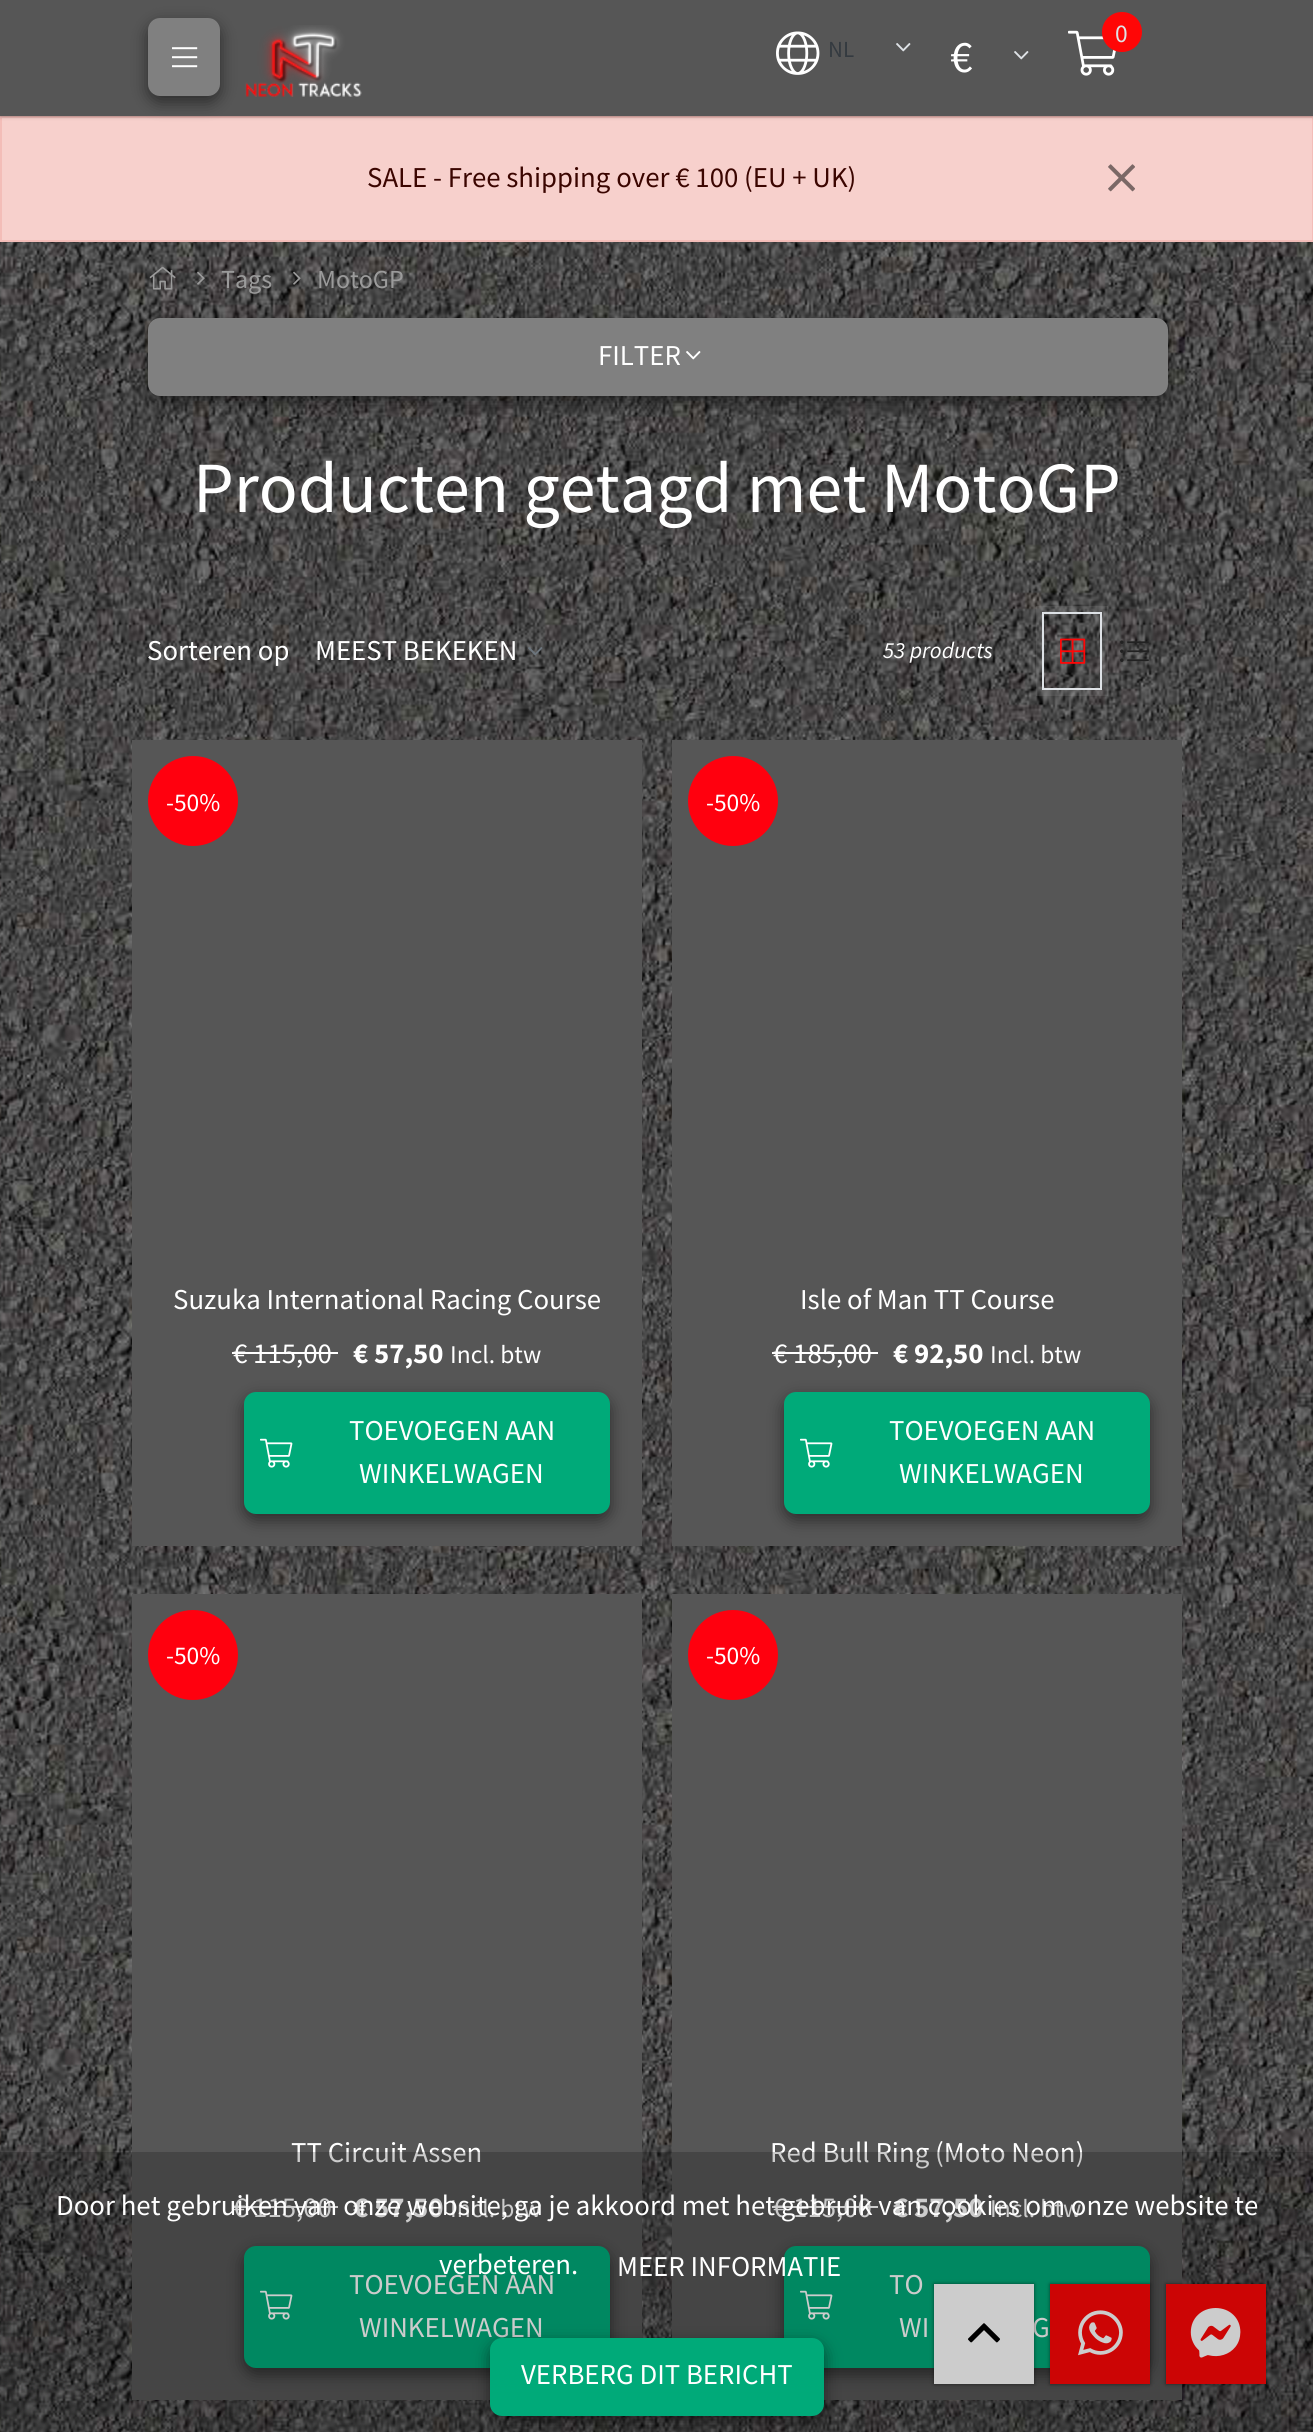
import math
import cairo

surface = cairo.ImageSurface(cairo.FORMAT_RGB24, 1313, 2432)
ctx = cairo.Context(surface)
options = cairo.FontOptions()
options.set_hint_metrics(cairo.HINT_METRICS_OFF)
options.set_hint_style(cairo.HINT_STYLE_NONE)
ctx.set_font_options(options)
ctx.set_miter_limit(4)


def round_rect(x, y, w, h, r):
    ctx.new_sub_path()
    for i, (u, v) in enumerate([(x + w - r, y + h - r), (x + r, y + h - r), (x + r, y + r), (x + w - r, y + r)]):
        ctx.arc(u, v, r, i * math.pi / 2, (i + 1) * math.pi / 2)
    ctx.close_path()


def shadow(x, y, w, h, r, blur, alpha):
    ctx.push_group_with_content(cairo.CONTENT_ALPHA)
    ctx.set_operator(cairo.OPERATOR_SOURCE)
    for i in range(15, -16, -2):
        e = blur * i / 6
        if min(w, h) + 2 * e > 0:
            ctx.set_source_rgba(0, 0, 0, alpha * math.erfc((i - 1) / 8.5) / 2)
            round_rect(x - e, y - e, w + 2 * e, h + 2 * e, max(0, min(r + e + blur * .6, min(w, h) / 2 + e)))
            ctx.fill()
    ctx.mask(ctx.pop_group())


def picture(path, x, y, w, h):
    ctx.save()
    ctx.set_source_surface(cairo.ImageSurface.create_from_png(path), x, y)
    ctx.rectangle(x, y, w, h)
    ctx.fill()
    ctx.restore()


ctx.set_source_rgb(1, 1, 1)
ctx.paint()
picture("img1.png", 0, 242, 1313, 2190)
ctx.set_source_rgb(0.965, 0.816, 0.8)
ctx.rectangle(1, 117, 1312, 124)
ctx.fill_preserve()
ctx.set_source_rgb(0.953, 0.741, 0.722)
ctx.stroke()
ctx.set_source_rgb(0, 0, 0)
shadow(0, 0, 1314, 116, 0, 2, 0.5)
ctx.set_source_rgb(0.337, 0.337, 0.337)
ctx.rectangle(0, 0, 1313, 116)
ctx.fill()
ctx.set_source_rgb(0, 0, 0)
shadow(148, 24, 72, 78, 12, 8, 0.5)
ctx.set_source_rgb(0.502, 0.502, 0.502)
round_rect(148, 18, 72, 78, 12)
ctx.fill()
picture("img2.png", 172, 47, 26, 21)
picture("img3.png", 245, 25, 117, 72)
picture("img4.png", 1068, 30, 48, 46)
ctx.set_source_rgb(1, 0.027, 0.027)
ctx.arc(1122, 32, 20, 0, 2 * math.pi)
ctx.fill()
ctx.select_font_face("Source Sans Pro")
ctx.set_font_size(25.5)
ctx.set_source_rgb(0.871, 0.886, 0.902)
ctx.move_to(1115, 42)
ctx.show_text("0")
picture("img5.png", 776, 31, 44, 44)
ctx.set_font_size(23)
ctx.set_source_rgb(0.204, 0.227, 0.251)
ctx.move_to(828, 57)
ctx.show_text("NL")
picture("img6.png", 896, 43, 15, 9)
ctx.set_font_size(45)
ctx.set_source_rgb(1, 1, 1)
ctx.move_to(950, 72)
ctx.show_text("€")
picture("img6.png", 1014, 51, 15, 9)
ctx.set_font_size(28.8)
ctx.set_source_rgb(0.231, 0.02, 0)
ctx.move_to(367, 187)
ctx.show_text("SALE - Free shipping over € 100 (EU + UK)")
picture("img7.png", 1108, 164, 27, 28)
picture("img8.png", 149, 266, 27, 24)
picture("img9.png", 197, 271, 8, 14)
ctx.set_font_size(26)
ctx.set_source_rgb(0.608, 0.608, 0.608)
ctx.move_to(221, 288)
ctx.show_text("Tags")
picture("img10.png", 293, 271, 8, 14)
ctx.move_to(317, 288)
ctx.show_text("MotoGP")
ctx.set_source_rgb(0, 0, 0)
shadow(148, 324, 1020, 78, 12, 8, 0.5)
ctx.set_source_rgb(0.502, 0.502, 0.502)
round_rect(148, 318, 1020, 78, 12)
ctx.fill()
ctx.set_font_size(28.8)
ctx.set_source_rgb(1, 1, 1)
ctx.move_to(598, 365)
ctx.show_text("FILTER")
picture("img11.png", 686, 351, 15, 9)
ctx.set_font_size(72)
ctx.move_to(193, 512)
ctx.show_text("Producten getagd met MotoGP")
ctx.set_font_size(28.8)
ctx.move_to(147, 660)
ctx.show_text("Sorteren op")
ctx.move_to(315, 660)
ctx.show_text("MEEST BEKEKEN")
picture("img12.png", 528, 647, 15, 9)
ctx.select_font_face("Source Sans Pro", cairo.FONT_SLANT_ITALIC)
ctx.set_font_size(23)
ctx.move_to(883, 658)
ctx.show_text("53 products")
ctx.rectangle(1039, 609, 66, 84)
ctx.set_source_rgba(0.608, 0.608, 0.608, 0.2)
ctx.set_line_width(6)
ctx.stroke()
ctx.rectangle(1043, 613, 58, 76)
ctx.set_source_rgb(0.871, 0.886, 0.902)
ctx.set_line_width(2)
ctx.stroke()
picture("img13.png", 1060, 638, 26, 26)
picture("img14.png", 1120, 640, 29, 22)
ctx.set_source_rgb(0.337, 0.337, 0.337)
ctx.rectangle(132, 740, 510, 806)
ctx.fill()
ctx.set_source_rgb(1, 0, 0.055)
ctx.arc(193, 801, 45, 0, 2 * math.pi)
ctx.fill()
ctx.select_font_face("Source Sans Pro")
ctx.set_font_size(25.5)
ctx.set_source_rgb(1, 1, 1)
ctx.move_to(166, 811)
ctx.show_text("-50%")
ctx.set_font_size(28.8)
ctx.move_to(173, 1309)
ctx.show_text("Suzuka International Racing Course")
ctx.move_to(233, 1363)
ctx.show_text("€ 115,00")
ctx.rectangle(232, 1352, 106, 2)
ctx.fill()
ctx.select_font_face("Source Sans Pro", cairo.FONT_SLANT_NORMAL, cairo.FONT_WEIGHT_BOLD)
ctx.move_to(353, 1363)
ctx.show_text("€ 57,50")
ctx.select_font_face("Source Sans Pro")
ctx.set_font_size(25.5)
ctx.move_to(450, 1363)
ctx.show_text("Incl. btw")
ctx.set_source_rgb(0, 0, 0)
shadow(244, 1398, 366, 122, 12, 8, 0.5)
ctx.set_source_rgb(0, 0.667, 0.475)
round_rect(244, 1392, 366, 122, 12)
ctx.fill()
picture("img15.png", 260, 1438, 33, 30)
ctx.set_font_size(28.8)
ctx.set_source_rgb(1, 1, 1)
ctx.move_to(349, 1440)
ctx.show_text("TOEVOEGEN AAN")
ctx.move_to(359, 1483)
ctx.show_text("WINKELWAGEN")
ctx.set_source_rgb(0.337, 0.337, 0.337)
ctx.rectangle(672, 740, 510, 806)
ctx.fill()
ctx.set_source_rgb(1, 0, 0.055)
ctx.arc(733, 801, 45, 0, 2 * math.pi)
ctx.fill()
ctx.set_font_size(25.5)
ctx.set_source_rgb(1, 1, 1)
ctx.move_to(706, 811)
ctx.show_text("-50%")
ctx.set_font_size(28.8)
ctx.move_to(800, 1309)
ctx.show_text("Isle of Man TT Course")
ctx.move_to(773, 1363)
ctx.show_text("€ 185,00")
ctx.rectangle(772, 1352, 106, 2)
ctx.fill()
ctx.select_font_face("Source Sans Pro", cairo.FONT_SLANT_NORMAL, cairo.FONT_WEIGHT_BOLD)
ctx.move_to(893, 1363)
ctx.show_text("€ 92,50")
ctx.select_font_face("Source Sans Pro")
ctx.set_font_size(25.5)
ctx.move_to(990, 1363)
ctx.show_text("Incl. btw")
ctx.set_source_rgb(0, 0, 0)
shadow(784, 1398, 366, 122, 12, 8, 0.5)
ctx.set_source_rgb(0, 0.667, 0.475)
round_rect(784, 1392, 366, 122, 12)
ctx.fill()
picture("img15.png", 800, 1438, 33, 30)
ctx.set_font_size(28.8)
ctx.set_source_rgb(1, 1, 1)
ctx.move_to(889, 1440)
ctx.show_text("TOEVOEGEN AAN")
ctx.move_to(899, 1483)
ctx.show_text("WINKELWAGEN")
ctx.set_source_rgb(0.337, 0.337, 0.337)
ctx.rectangle(132, 1594, 510, 806)
ctx.fill()
ctx.set_source_rgb(1, 0, 0.055)
ctx.arc(193, 1655, 45, 0, 2 * math.pi)
ctx.fill()
ctx.set_font_size(25.5)
ctx.set_source_rgb(1, 1, 1)
ctx.move_to(166, 1664)
ctx.show_text("-50%")
ctx.set_font_size(28.8)
ctx.move_to(291, 2162)
ctx.show_text("TT Circuit Assen")
ctx.move_to(233, 2217)
ctx.show_text("€ 115,00")
ctx.rectangle(232, 2206, 106, 2)
ctx.fill()
ctx.select_font_face("Source Sans Pro", cairo.FONT_SLANT_NORMAL, cairo.FONT_WEIGHT_BOLD)
ctx.move_to(353, 2217)
ctx.show_text("€ 57,50")
ctx.select_font_face("Source Sans Pro")
ctx.set_font_size(25.5)
ctx.move_to(450, 2217)
ctx.show_text("Incl. btw")
ctx.set_source_rgb(0, 0, 0)
shadow(244, 2252, 366, 122, 12, 8, 0.5)
ctx.set_source_rgb(0, 0.667, 0.475)
round_rect(244, 2246, 366, 122, 12)
ctx.fill()
picture("img15.png", 260, 2290, 33, 30)
ctx.set_font_size(28.8)
ctx.set_source_rgb(1, 1, 1)
ctx.move_to(349, 2294)
ctx.show_text("TOEVOEGEN AAN")
ctx.move_to(359, 2337)
ctx.show_text("WINKELWAGEN")
ctx.set_source_rgb(0.337, 0.337, 0.337)
ctx.rectangle(672, 1594, 510, 806)
ctx.fill()
ctx.set_source_rgb(1, 0, 0.055)
ctx.arc(733, 1655, 45, 0, 2 * math.pi)
ctx.fill()
ctx.set_font_size(25.5)
ctx.set_source_rgb(1, 1, 1)
ctx.move_to(706, 1664)
ctx.show_text("-50%")
ctx.set_font_size(28.8)
ctx.move_to(770, 2162)
ctx.show_text("Red Bull Ring (Moto Neon)")
ctx.move_to(773, 2217)
ctx.show_text("€ 115,00")
ctx.rectangle(772, 2206, 106, 2)
ctx.fill()
ctx.select_font_face("Source Sans Pro", cairo.FONT_SLANT_NORMAL, cairo.FONT_WEIGHT_BOLD)
ctx.move_to(893, 2217)
ctx.show_text("€ 57,50")
ctx.select_font_face("Source Sans Pro")
ctx.set_font_size(25.5)
ctx.move_to(990, 2217)
ctx.show_text("Incl. btw")
ctx.set_source_rgb(0, 0, 0)
shadow(784, 2252, 366, 122, 12, 8, 0.5)
ctx.set_source_rgb(0, 0.667, 0.475)
round_rect(784, 2246, 366, 122, 12)
ctx.fill()
picture("img15.png", 800, 2290, 33, 30)
ctx.set_font_size(28.8)
ctx.set_source_rgb(1, 1, 1)
ctx.move_to(889, 2294)
ctx.show_text("TO")
ctx.move_to(899, 2337)
ctx.show_text("WI")
ctx.move_to(1032, 2337)
ctx.show_text("G")
ctx.set_source_rgb(0, 0, 0)
shadow(934, 2284, 100, 100, 0, 2, 0.5)
ctx.set_source_rgb(1, 1, 1)
ctx.rectangle(934, 2284, 100, 100)
ctx.fill()
picture("img16.png", 968, 2323, 32, 20)
ctx.set_source_rgb(0, 0, 0)
shadow(1050, 2284, 100, 100, 0, 2, 0.5)
ctx.set_source_rgb(1, 0.027, 0.027)
ctx.rectangle(1050, 2284, 100, 100)
ctx.fill()
picture("img17.png", 1078, 2310, 45, 46)
ctx.set_source_rgb(0, 0, 0)
shadow(1166, 2284, 100, 100, 0, 2, 0.5)
ctx.set_source_rgb(1, 0.027, 0.027)
ctx.rectangle(1166, 2284, 100, 100)
ctx.fill()
picture("img18.png", 1190, 2308, 51, 50)
ctx.set_source_rgba(0, 0, 0, 0.2)
ctx.rectangle(0, 2152, 1313, 280)
ctx.fill()
ctx.set_source_rgb(1, 1, 1)
ctx.move_to(56, 2215)
ctx.show_text("Door het gebruiken van onze website, ga je akkoord met het gebruik van cookies om onze website te")
ctx.move_to(439, 2274)
ctx.show_text("verbeteren.")
ctx.move_to(617, 2276)
ctx.show_text("MEER INFORMATIE")
ctx.set_source_rgb(0, 0, 0)
shadow(490, 2344, 334, 78, 12, 8, 0.5)
ctx.set_source_rgb(0, 0.667, 0.475)
round_rect(490, 2338, 334, 78, 12)
ctx.fill()
ctx.set_source_rgb(1, 1, 1)
ctx.move_to(521, 2384)
ctx.show_text("VERBERG DIT BERICHT")
surface.write_to_png("page.png")
